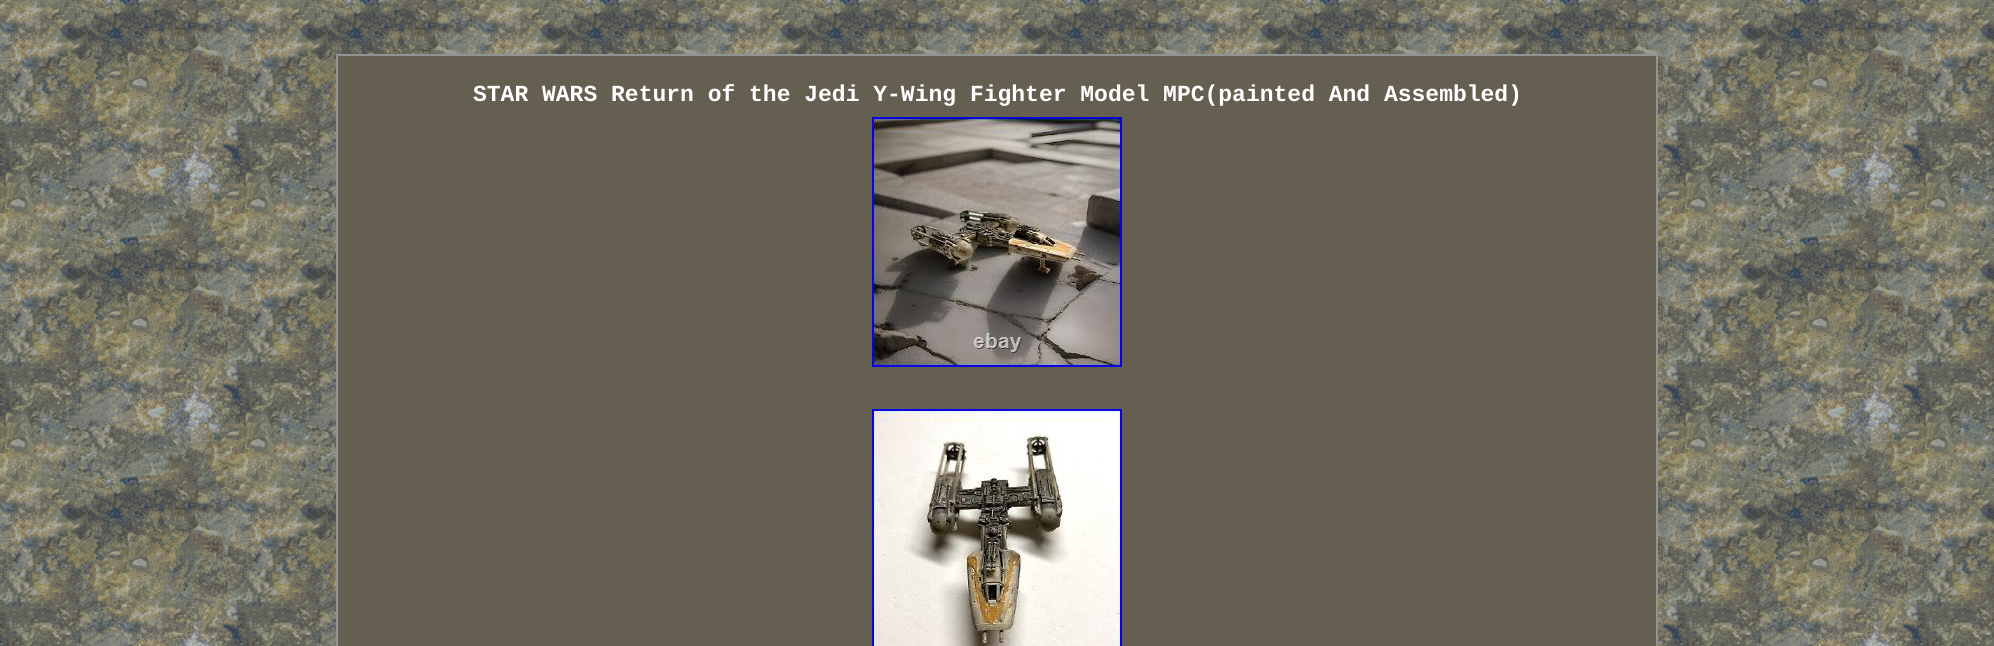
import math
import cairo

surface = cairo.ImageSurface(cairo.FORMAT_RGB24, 1994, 646)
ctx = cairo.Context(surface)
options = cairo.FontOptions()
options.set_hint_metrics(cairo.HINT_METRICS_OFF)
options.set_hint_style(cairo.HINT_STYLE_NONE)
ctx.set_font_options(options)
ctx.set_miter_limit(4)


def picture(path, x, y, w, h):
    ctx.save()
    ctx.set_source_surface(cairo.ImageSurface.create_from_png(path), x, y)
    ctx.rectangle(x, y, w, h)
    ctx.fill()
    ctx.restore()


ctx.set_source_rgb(1, 1, 1)
ctx.paint()
picture("img1.png", 0, 0, 1994, 646)
ctx.set_source_rgb(0.396, 0.373, 0.318)
ctx.rectangle(337, 55, 1320, 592)
ctx.fill_preserve()
ctx.set_source_rgb(0.565, 0.58, 0.576)
ctx.stroke()
ctx.select_font_face("Liberation Mono", cairo.FONT_SLANT_NORMAL, cairo.FONT_WEIGHT_BOLD)
ctx.set_font_size(23)
ctx.set_source_rgb(1, 1, 1)
ctx.move_to(473, 101)
ctx.show_text("STAR WARS Return of the Jedi Y-Wing Fighter Model MPC(painted And Assembled)")
picture("img2.png", 872, 117, 250, 250)
picture("img3.png", 872, 409, 250, 237)
surface.write_to_png("page.png")
